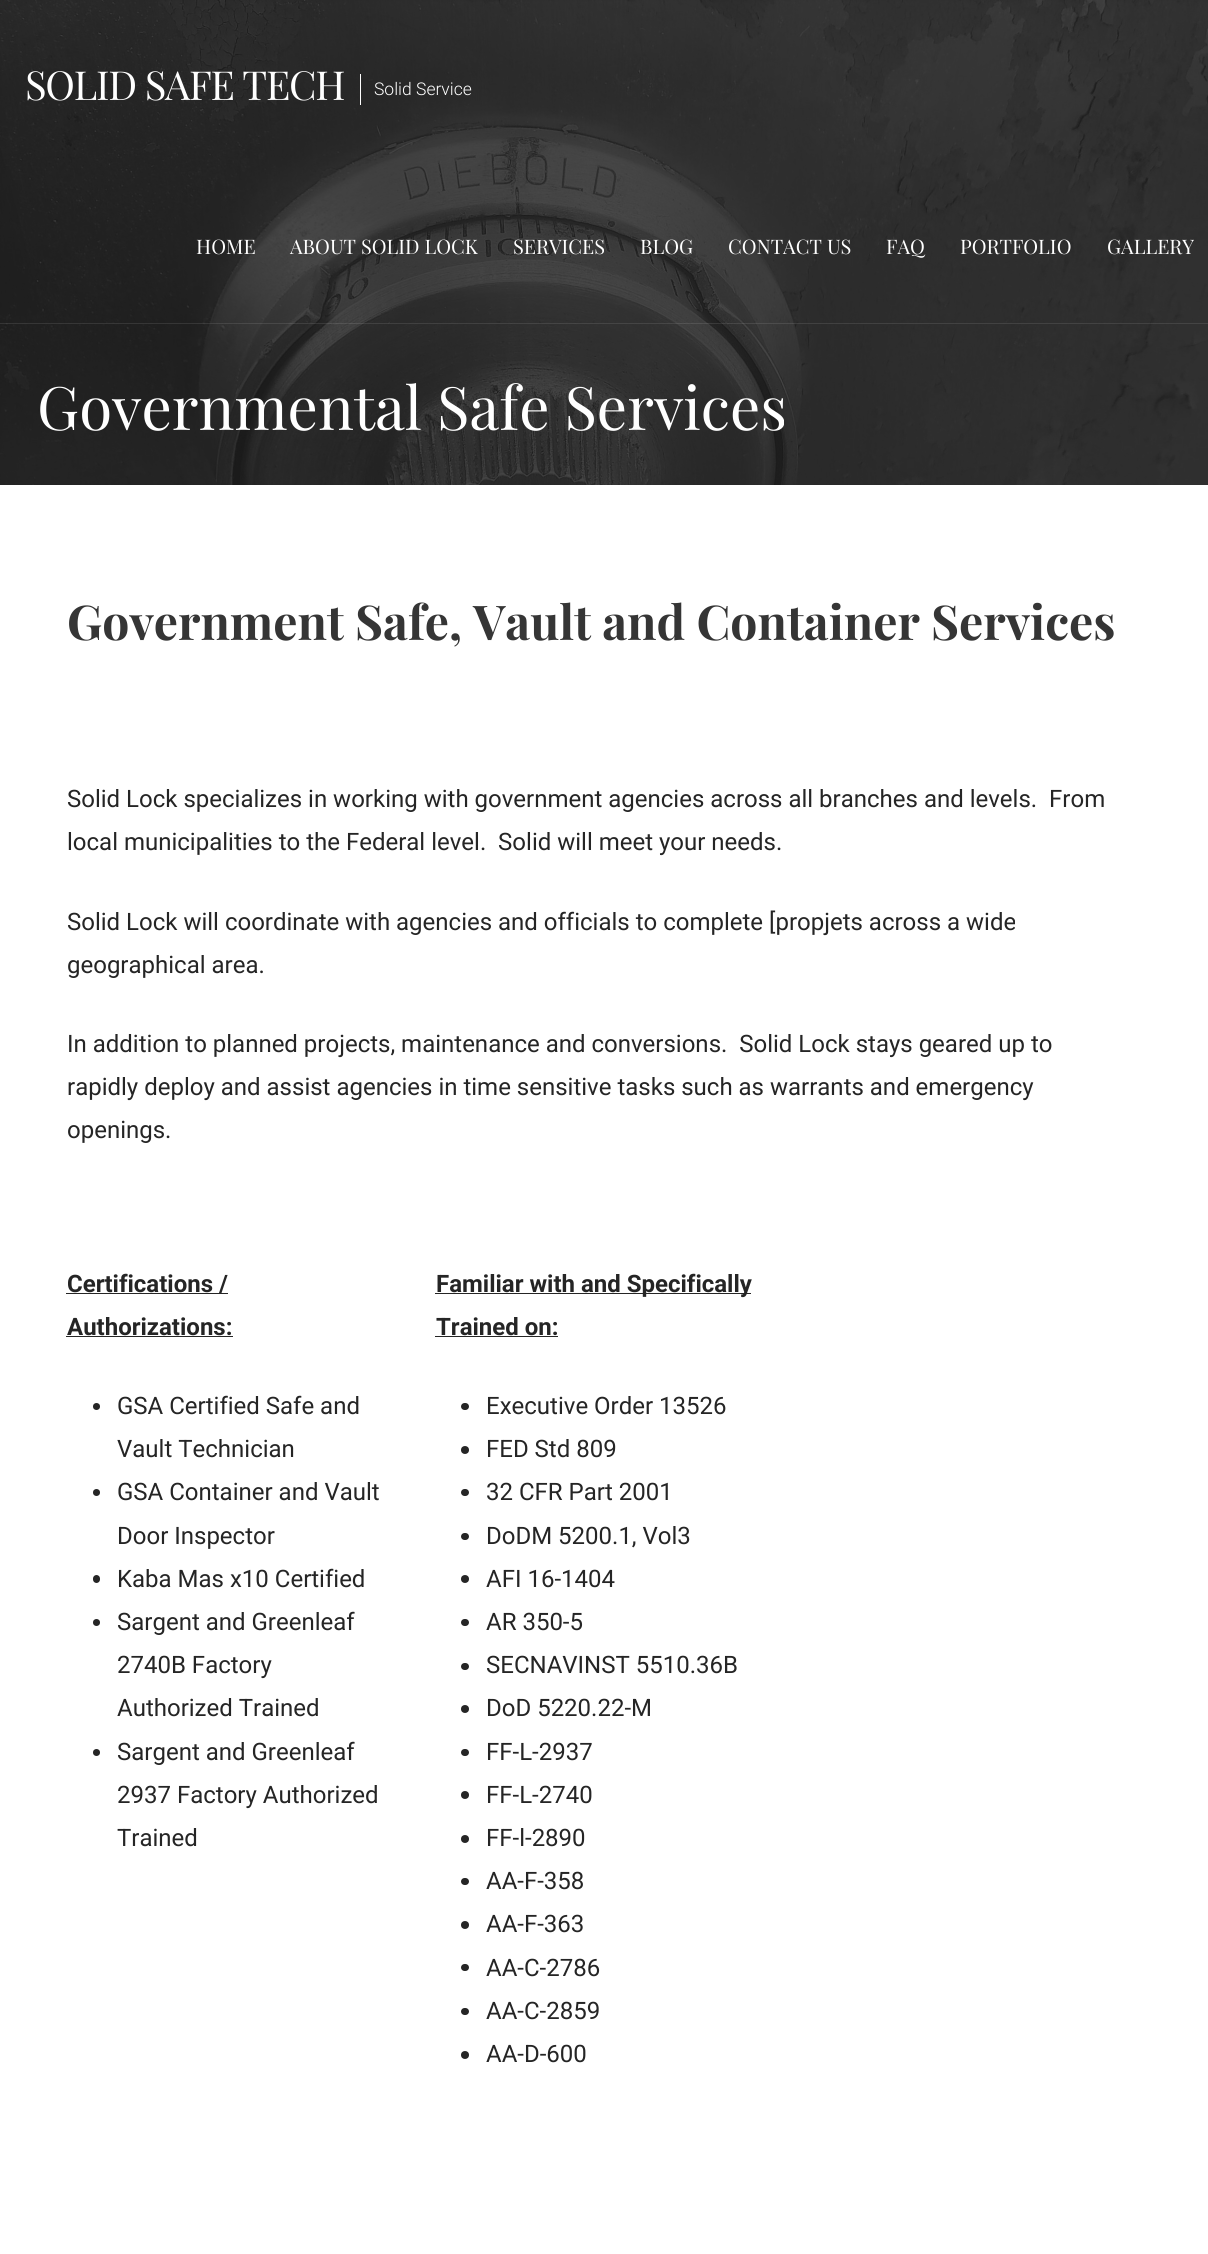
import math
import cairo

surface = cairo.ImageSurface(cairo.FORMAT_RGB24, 1208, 2254)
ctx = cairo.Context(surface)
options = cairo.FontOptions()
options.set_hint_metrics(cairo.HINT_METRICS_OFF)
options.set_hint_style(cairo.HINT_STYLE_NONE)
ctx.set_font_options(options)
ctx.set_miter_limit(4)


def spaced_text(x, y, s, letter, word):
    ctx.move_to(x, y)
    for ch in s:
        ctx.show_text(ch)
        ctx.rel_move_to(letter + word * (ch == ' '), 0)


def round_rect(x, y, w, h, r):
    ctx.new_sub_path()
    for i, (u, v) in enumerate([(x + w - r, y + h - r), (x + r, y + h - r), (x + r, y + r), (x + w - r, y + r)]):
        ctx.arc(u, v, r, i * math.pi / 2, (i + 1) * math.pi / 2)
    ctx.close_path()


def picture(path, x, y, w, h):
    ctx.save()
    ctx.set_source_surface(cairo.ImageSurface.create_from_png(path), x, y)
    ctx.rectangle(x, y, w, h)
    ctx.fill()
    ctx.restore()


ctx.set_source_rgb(1, 1, 1)
ctx.paint()
picture("img1.png", 0, 0, 1208, 485)
ctx.set_source_rgba(1, 1, 1, 0.1)
ctx.rectangle(0, 323, 1208, 1)
ctx.fill()
ctx.select_font_face("Playfair Display")
ctx.set_font_size(40)
ctx.set_source_rgb(1, 1, 1)
spaced_text(25, 100, "SOLID SAFE TECH", -1.25, 0)
ctx.rectangle(360, 74, 1, 31)
ctx.fill()
ctx.select_font_face("Roboto Light")
ctx.set_font_size(17.5)
ctx.move_to(374, 95)
ctx.show_text("Solid Service")
ctx.select_font_face("Playfair Display")
ctx.set_font_size(20)
ctx.move_to(196, 254)
ctx.show_text("HOME")
ctx.move_to(290, 254)
ctx.show_text("ABOUT SOLID LOCK")
ctx.move_to(513, 254)
ctx.show_text("SERVICES")
ctx.move_to(640, 254)
ctx.show_text("BLOG")
ctx.move_to(728, 254)
ctx.show_text("CONTACT US")
ctx.move_to(886, 254)
ctx.show_text("FAQ")
ctx.move_to(960, 254)
ctx.show_text("PORTFOLIO")
ctx.move_to(1107, 254)
ctx.show_text("GALLERY")
ctx.set_font_size(60)
ctx.move_to(37, 430)
ctx.show_text("Governmental Safe Services")
ctx.select_font_face("Playfair Display", cairo.FONT_SLANT_NORMAL, cairo.FONT_WEIGHT_BOLD)
ctx.set_font_size(48)
ctx.set_source_rgb(0.208, 0.208, 0.208)
ctx.move_to(67, 640)
ctx.show_text("Government Safe, Vault and Container Services")
ctx.select_font_face("Roboto")
ctx.set_font_size(24)
ctx.set_source_rgb(0.145, 0.145, 0.145)
ctx.move_to(67, 807)
ctx.show_text("Solid Lock specializes in working with government agencies across all branches and levels.  From")
ctx.move_to(67, 850)
ctx.show_text("local municipalities to the Federal level.  Solid will meet your needs.")
ctx.move_to(67, 930)
ctx.show_text("Solid Lock will coordinate with agencies and officials to complete [propjets across a wide")
ctx.move_to(67, 973)
ctx.show_text("geographical area.")
ctx.move_to(67, 1052)
ctx.show_text("In addition to planned projects, maintenance and conversions.  Solid Lock stays geared up to")
ctx.move_to(67, 1095)
ctx.show_text("rapidly deploy and assist agencies in time sensitive tasks such as warrants and emergency")
ctx.move_to(67, 1138)
ctx.show_text("openings.")
ctx.rectangle(66, 1293, 162, 1)
ctx.fill()
ctx.select_font_face("Roboto", cairo.FONT_SLANT_NORMAL, cairo.FONT_WEIGHT_BOLD)
ctx.move_to(67, 1292)
ctx.show_text("Certifications /")
ctx.move_to(67, 1335)
ctx.show_text("Authorizations:")
ctx.rectangle(66, 1336, 167, 1)
ctx.fill()
ctx.arc(96.5, 1406.5, 3.5, 0, 2 * math.pi)
ctx.fill()
ctx.select_font_face("Roboto")
ctx.move_to(117, 1414)
ctx.show_text("GSA Certified Safe and")
ctx.move_to(117, 1457)
ctx.show_text("Vault Technician")
ctx.new_path()
ctx.arc(96.5, 1492.5, 3.5, 0, 2 * math.pi)
ctx.fill()
ctx.move_to(117, 1500)
ctx.show_text("GSA Container and Vault")
ctx.move_to(117, 1544)
ctx.show_text("Door Inspector")
round_rect(93, 1575, 7, 8, 3.5)
ctx.fill()
ctx.move_to(117, 1587)
ctx.show_text("Kaba Mas x10 Certified")
ctx.new_path()
ctx.arc(96.5, 1622.5, 3.5, 0, 2 * math.pi)
ctx.fill()
ctx.move_to(117, 1630)
ctx.show_text("Sargent and Greenleaf")
ctx.move_to(117, 1673)
ctx.show_text("2740B Factory")
ctx.move_to(117, 1716)
ctx.show_text("Authorized Trained")
ctx.new_path()
ctx.arc(96.5, 1752.5, 3.5, 0, 2 * math.pi)
ctx.fill()
ctx.move_to(117, 1760)
ctx.show_text("Sargent and Greenleaf")
ctx.move_to(117, 1803)
ctx.show_text("2937 Factory Authorized")
ctx.move_to(117, 1846)
ctx.show_text("Trained")
ctx.rectangle(435, 1293, 316, 1)
ctx.fill()
ctx.select_font_face("Roboto", cairo.FONT_SLANT_NORMAL, cairo.FONT_WEIGHT_BOLD)
ctx.move_to(436, 1292)
ctx.show_text("Familiar with and Specifically")
ctx.move_to(436, 1335)
ctx.show_text("Trained on:")
ctx.rectangle(435, 1336, 123, 1)
ctx.fill()
round_rect(461, 1403, 8, 7, 3.5)
ctx.fill()
ctx.select_font_face("Roboto")
ctx.move_to(486, 1414)
ctx.show_text("Executive Order 13526")
ctx.new_path()
ctx.arc(465, 1450, 4, 0, 2 * math.pi)
ctx.fill()
ctx.move_to(486, 1457)
ctx.show_text("FED Std 809")
round_rect(461, 1489, 8, 7, 3.5)
ctx.fill()
ctx.move_to(486, 1500)
ctx.show_text("32 CFR Part 2001")
round_rect(461, 1533, 8, 7, 3.5)
ctx.fill()
ctx.move_to(486, 1544)
ctx.show_text("DoDM 5200.1, Vol3")
ctx.new_path()
ctx.arc(465, 1579, 4, 0, 2 * math.pi)
ctx.fill()
ctx.move_to(486, 1587)
ctx.show_text("AFI 16-1404")
round_rect(461, 1619, 8, 7, 3.5)
ctx.fill()
ctx.move_to(486, 1630)
ctx.show_text("AR 350-5")
round_rect(461, 1663, 8, 7, 3.5)
ctx.fill()
ctx.move_to(486, 1673)
ctx.show_text("SECNAVINST 5510.36B")
ctx.new_path()
ctx.arc(465, 1709, 4, 0, 2 * math.pi)
ctx.fill()
ctx.move_to(486, 1716)
ctx.show_text("DoD 5220.22-M")
round_rect(461, 1749, 8, 7, 3.5)
ctx.fill()
ctx.move_to(486, 1760)
ctx.show_text("FF-L-2937")
ctx.new_path()
ctx.arc(465, 1795, 4, 0, 2 * math.pi)
ctx.fill()
ctx.move_to(486, 1803)
ctx.show_text("FF-L-2740")
ctx.new_path()
ctx.arc(465, 1839, 4, 0, 2 * math.pi)
ctx.fill()
ctx.move_to(486, 1846)
ctx.show_text("FF-l-2890")
round_rect(461, 1878, 8, 7, 3.5)
ctx.fill()
ctx.move_to(486, 1889)
ctx.show_text("AA-F-358")
ctx.new_path()
ctx.arc(465, 1925, 4, 0, 2 * math.pi)
ctx.fill()
ctx.move_to(486, 1932)
ctx.show_text("AA-F-363")
round_rect(461, 1964, 8, 7, 3.5)
ctx.fill()
ctx.move_to(486, 1976)
ctx.show_text("AA-C-2786")
round_rect(461, 2008, 8, 7, 3.5)
ctx.fill()
ctx.move_to(486, 2019)
ctx.show_text("AA-C-2859")
ctx.new_path()
ctx.arc(465, 2055, 4, 0, 2 * math.pi)
ctx.fill()
ctx.move_to(486, 2062)
ctx.show_text("AA-D-600")
surface.write_to_png("page.png")
